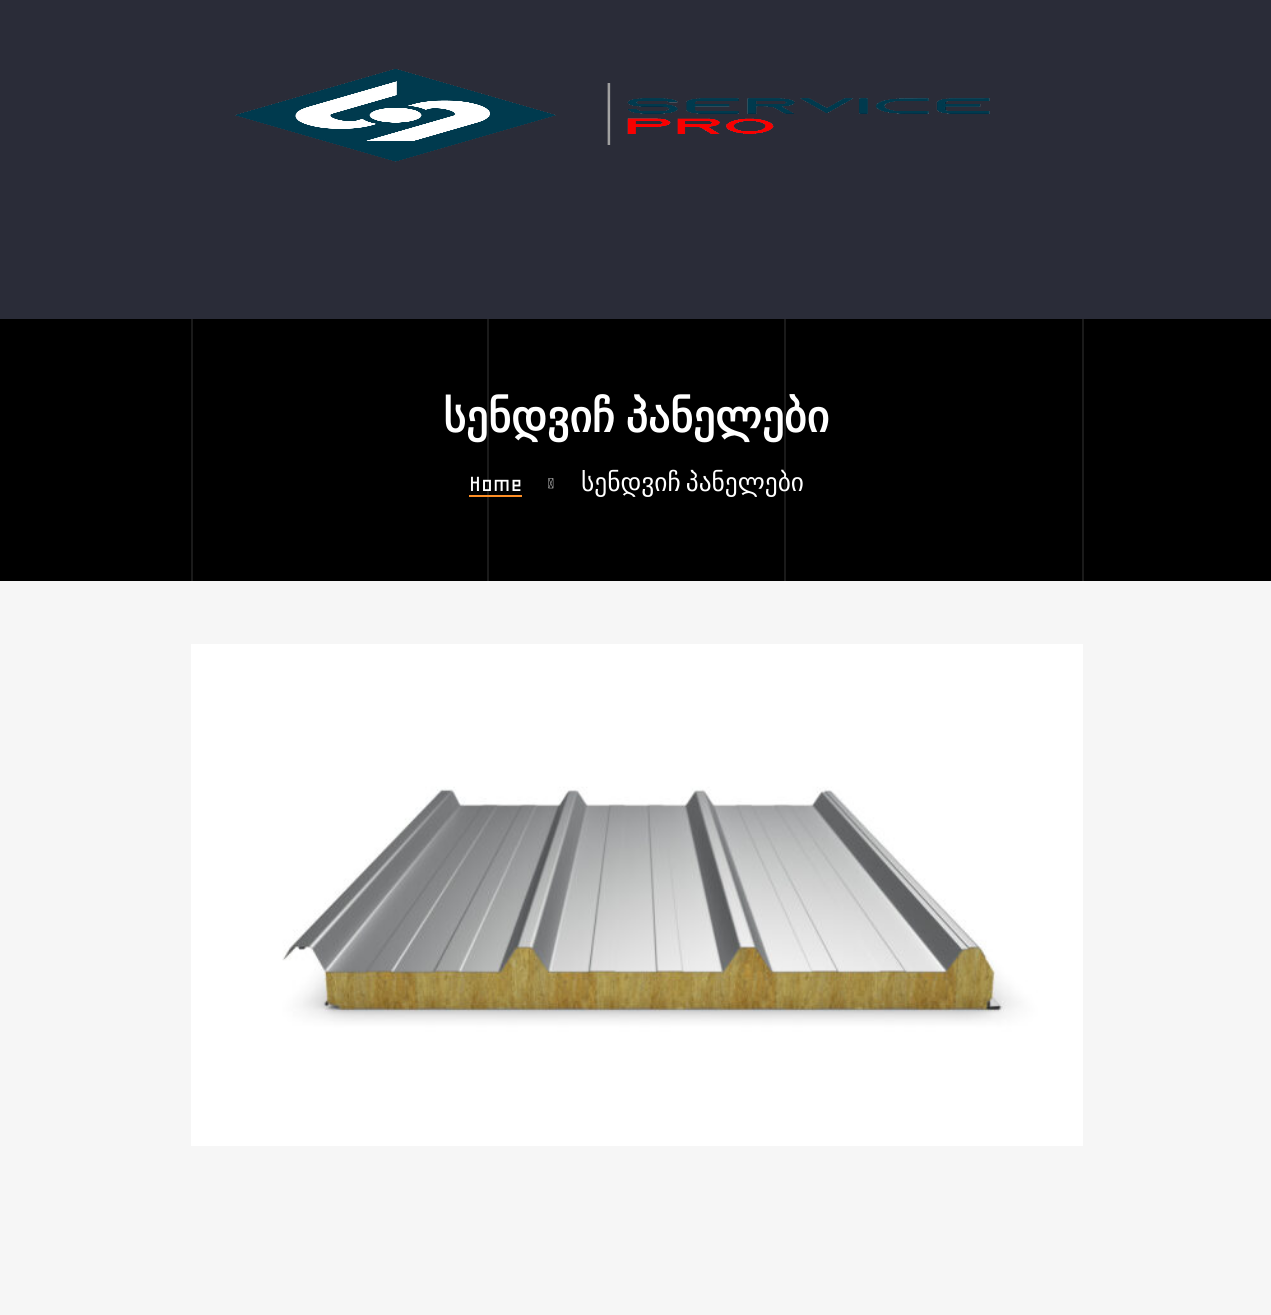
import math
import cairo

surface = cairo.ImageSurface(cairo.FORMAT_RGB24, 1271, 1315)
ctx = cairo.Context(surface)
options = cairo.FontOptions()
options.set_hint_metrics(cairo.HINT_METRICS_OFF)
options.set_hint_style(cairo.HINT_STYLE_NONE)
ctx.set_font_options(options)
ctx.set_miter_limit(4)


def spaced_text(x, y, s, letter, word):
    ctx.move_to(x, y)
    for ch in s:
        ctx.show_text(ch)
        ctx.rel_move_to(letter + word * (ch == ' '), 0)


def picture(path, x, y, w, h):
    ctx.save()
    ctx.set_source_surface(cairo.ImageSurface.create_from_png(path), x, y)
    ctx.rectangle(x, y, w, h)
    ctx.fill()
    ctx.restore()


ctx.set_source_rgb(0.961, 0.961, 0.961)
ctx.paint()
ctx.set_source_rgb(0.165, 0.173, 0.22)
ctx.rectangle(0, 0, 1271, 319)
ctx.fill()
picture("img1.png", 235, 69, 755, 93)
ctx.set_source_rgb(0, 0, 0)
ctx.rectangle(0, 319, 1271, 262)
ctx.fill()
ctx.set_source_rgb(0.102, 0.102, 0.102)
ctx.rectangle(784, 319, 2, 262)
ctx.fill()
ctx.rectangle(487, 319, 2, 262)
ctx.fill()
ctx.rectangle(191, 319, 2, 262)
ctx.fill()
ctx.rectangle(1082, 319, 2, 262)
ctx.fill()
ctx.select_font_face("DejaVu Sans", cairo.FONT_SLANT_NORMAL, cairo.FONT_WEIGHT_BOLD)
ctx.set_font_size(43.75)
ctx.set_source_rgb(1, 1, 1)
spaced_text(443, 432, "სენდვიჩ პანელები", 0, -3)
ctx.select_font_face("Geo")
ctx.set_font_size(25.4)
ctx.move_to(469, 491)
ctx.show_text("Home")
ctx.set_source_rgb(1, 0.561, 0.149)
ctx.rectangle(469, 495, 53, 2)
ctx.fill()
picture("img2.png", 548, 478, 6, 11)
ctx.select_font_face("DejaVu Sans")
ctx.set_source_rgb(1, 1, 1)
spaced_text(581, 491, "სენდვიჩ პანელები", 0, -3)
picture("img3.png", 191, 644, 892, 502)
surface.write_to_png("page.png")
